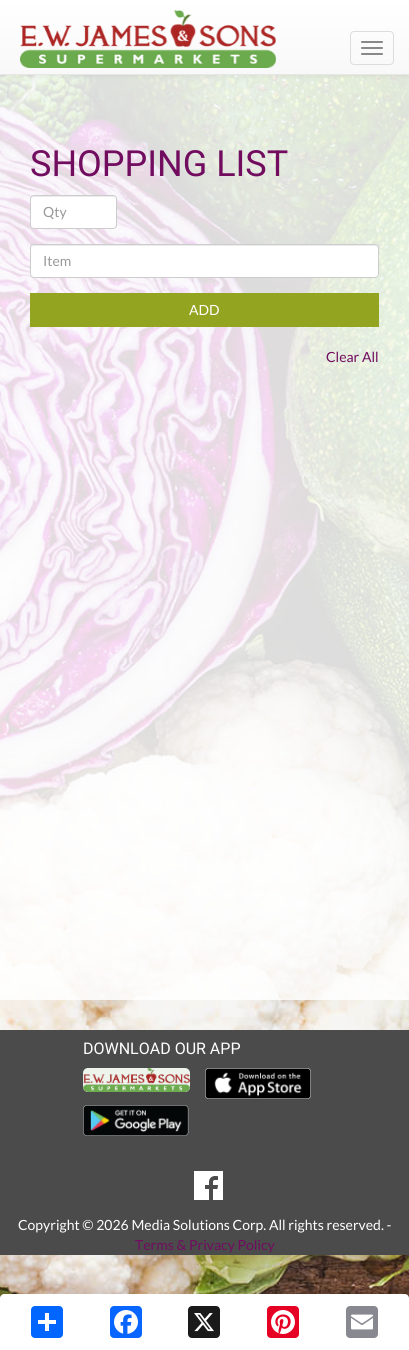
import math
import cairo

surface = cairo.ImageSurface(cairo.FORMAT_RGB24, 409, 1350)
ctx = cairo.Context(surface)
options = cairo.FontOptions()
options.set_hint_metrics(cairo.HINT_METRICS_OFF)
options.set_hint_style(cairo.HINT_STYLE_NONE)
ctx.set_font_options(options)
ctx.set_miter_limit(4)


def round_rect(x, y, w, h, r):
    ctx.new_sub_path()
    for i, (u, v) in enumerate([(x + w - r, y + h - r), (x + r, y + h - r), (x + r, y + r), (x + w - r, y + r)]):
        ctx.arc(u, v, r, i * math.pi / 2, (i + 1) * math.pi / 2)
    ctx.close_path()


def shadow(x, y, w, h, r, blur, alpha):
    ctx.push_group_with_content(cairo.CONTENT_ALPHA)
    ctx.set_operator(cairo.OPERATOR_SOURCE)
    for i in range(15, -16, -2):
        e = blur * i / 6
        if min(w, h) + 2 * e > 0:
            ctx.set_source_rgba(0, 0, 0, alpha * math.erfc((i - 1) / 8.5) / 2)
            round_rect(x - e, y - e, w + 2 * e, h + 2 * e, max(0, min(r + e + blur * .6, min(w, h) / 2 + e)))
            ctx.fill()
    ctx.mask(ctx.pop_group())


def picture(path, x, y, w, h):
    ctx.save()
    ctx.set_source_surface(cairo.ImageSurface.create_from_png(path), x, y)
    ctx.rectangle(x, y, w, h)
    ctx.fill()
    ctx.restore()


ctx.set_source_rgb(1, 1, 1)
ctx.paint()
picture("img1.png", 0, 75, 409, 1223)
ctx.set_source_rgba(1, 1, 1, 0.85)
ctx.rectangle(0, 75, 409, 925)
ctx.fill()
ctx.set_source_rgb(0, 0, 0)
shadow(0, 1, 409, 75, 0, 2.5, 0.07)
gradient = cairo.LinearGradient(205, 0, 205, 74)
gradient.add_color_stop_rgba(0, 1, 1, 1, 1)
gradient.add_color_stop_rgba(1, 0.973, 0.973, 0.973, 1)
ctx.set_source(gradient)
ctx.rectangle(0, 0, 409, 74)
ctx.fill()
ctx.set_source_rgb(0.906, 0.906, 0.906)
ctx.rectangle(0, 74, 409, 1)
ctx.fill()
picture("img2.png", 20, 10, 256, 58)
round_rect(350.5, 31.5, 43, 33, 3.5)
ctx.set_source_rgb(0.867, 0.867, 0.867)
ctx.set_line_width(1)
ctx.stroke()
ctx.set_source_rgb(0.533, 0.533, 0.533)
round_rect(361, 41, 22, 2, 1)
ctx.fill()
round_rect(361, 47, 22, 2, 1)
ctx.fill()
round_rect(361, 53, 22, 2, 1)
ctx.fill()
ctx.select_font_face("Roboto")
ctx.set_font_size(36)
ctx.set_source_rgb(0.443, 0.047, 0.373)
ctx.move_to(30, 176)
ctx.show_text("SHOPPING LIST")
ctx.set_source_rgb(1, 1, 1)
round_rect(30, 195, 87, 34, 4)
ctx.fill()
ctx.set_source_rgb(0.925, 0.925, 0.925)
ctx.new_path()
ctx.move_to(34, 197)
ctx.line_to(113, 197)
ctx.curve_to(115, 197, 116, 198, 116, 200)
ctx.curve_to(116, 193, 104, 196, 100, 196)
ctx.line_to(47, 196)
ctx.curve_to(43, 196, 31, 193, 31, 200)
ctx.curve_to(31, 198, 32, 197, 34, 197)
ctx.close_path()
ctx.fill()
round_rect(30.5, 195.5, 86, 33, 3.5)
ctx.set_source_rgb(0.8, 0.8, 0.8)
ctx.stroke()
ctx.select_font_face("Lato")
ctx.set_font_size(14)
ctx.set_source_rgb(0.6, 0.6, 0.6)
ctx.move_to(43, 217)
ctx.show_text("Qty")
ctx.set_source_rgb(1, 1, 1)
round_rect(30, 244, 349, 34, 4)
ctx.fill()
ctx.set_source_rgb(0.925, 0.925, 0.925)
ctx.new_path()
ctx.move_to(34, 246)
ctx.line_to(375, 246)
ctx.curve_to(377, 246, 378, 247, 378, 249)
ctx.curve_to(378, 247, 377, 245, 375, 245)
ctx.line_to(34, 245)
ctx.line_to(32, 246)
ctx.line_to(31, 249)
ctx.curve_to(31, 247, 32, 246, 34, 246)
ctx.close_path()
ctx.fill()
round_rect(30.5, 244.5, 348, 33, 3.5)
ctx.set_source_rgb(0.8, 0.8, 0.8)
ctx.stroke()
ctx.set_source_rgb(0.6, 0.6, 0.6)
ctx.move_to(43, 266)
ctx.show_text("Item")
ctx.set_source_rgb(0.576, 0.643, 0.125)
ctx.rectangle(30, 293, 349, 34)
ctx.fill()
ctx.set_source_rgb(1, 1, 1)
ctx.move_to(189, 315)
ctx.show_text("ADD")
ctx.set_source_rgb(0.443, 0.047, 0.373)
ctx.move_to(326, 362)
ctx.show_text("Clear All")
ctx.set_source_rgb(0.294, 0.294, 0.294)
ctx.rectangle(0, 1030, 409, 225)
ctx.fill()
ctx.select_font_face("Roboto")
ctx.set_font_size(16)
ctx.set_source_rgb(1, 1, 1)
ctx.move_to(83, 1054)
ctx.show_text("DOWNLOAD OUR APP")
ctx.set_source_rgb(0.933, 0.953, 0.922)
round_rect(83, 1068, 107, 24, 5)
ctx.fill()
picture("img3.png", 83, 1068, 107, 24)
picture("img4.png", 205, 1068, 106, 31)
picture("img5.png", 83, 1105, 106, 31)
picture("img6.png", 194, 1171, 29, 29)
ctx.select_font_face("Lato")
ctx.set_font_size(14)
ctx.set_source_rgb(1, 1, 1)
ctx.move_to(18, 1230)
ctx.show_text("Copyright © 2026 Media Solutions Corp. All rights reserved. -")
ctx.set_source_rgb(0.443, 0.047, 0.373)
ctx.move_to(135, 1250)
ctx.show_text("Terms & Privacy Policy")
ctx.set_source_rgb(1, 1, 1)
ctx.new_path()
ctx.move_to(4, 1294)
ctx.line_to(405, 1294)
ctx.curve_to(407, 1294, 409, 1296, 409, 1298)
ctx.line_to(409, 1350)
ctx.line_to(0, 1350)
ctx.line_to(0, 1298)
ctx.curve_to(0, 1296, 2, 1294, 4, 1294)
ctx.close_path()
ctx.fill()
ctx.set_source_rgb(0.004, 0.4, 1)
round_rect(31, 1306, 32, 32, 4)
ctx.fill()
ctx.set_source_rgb(1, 1, 1)
ctx.rectangle(45, 1313, 4, 18)
ctx.fill()
ctx.rectangle(38, 1320, 18, 4)
ctx.fill()
ctx.set_source_rgb(0.031, 0.4, 1)
round_rect(110, 1306, 32, 32, 4)
ctx.fill()
picture("img7.png", 114, 1310, 24, 24)
ctx.set_source_rgb(0.102, 0.102, 0.102)
round_rect(188, 1306, 32, 32, 4)
ctx.fill()
picture("img8.png", 194, 1313, 20, 19)
ctx.set_source_rgb(0.902, 0, 0.137)
round_rect(267, 1306, 32, 32, 4)
ctx.fill()
picture("img9.png", 271, 1310, 24, 24)
ctx.set_source_rgb(0.533, 0.537, 0.565)
round_rect(346, 1306, 32, 32, 4)
ctx.fill()
picture("img10.png", 351, 1314, 22, 16)
surface.write_to_png("page.png")
